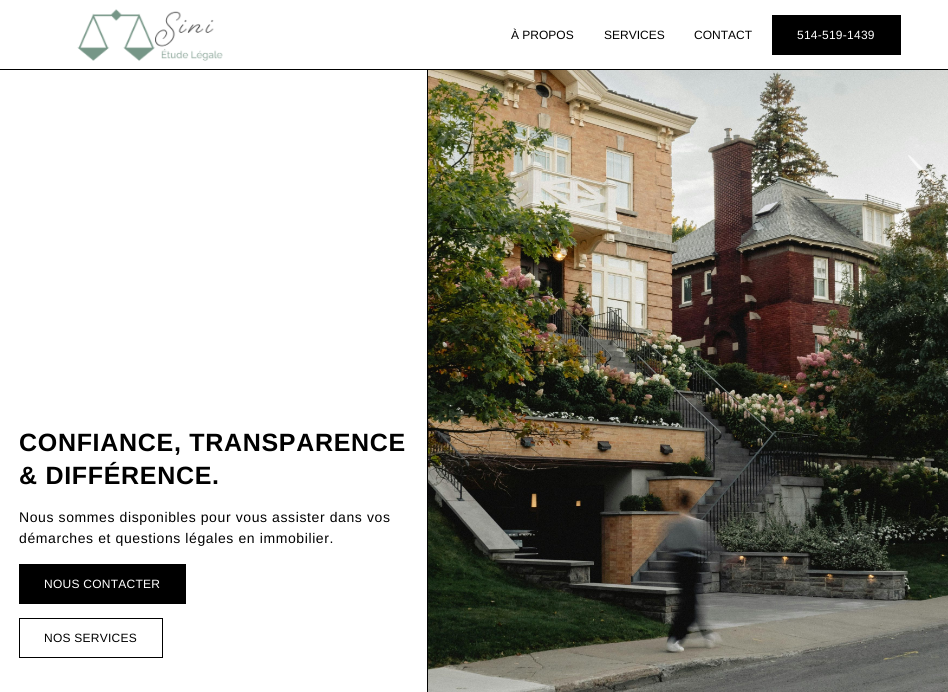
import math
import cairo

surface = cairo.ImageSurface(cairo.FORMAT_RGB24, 948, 692)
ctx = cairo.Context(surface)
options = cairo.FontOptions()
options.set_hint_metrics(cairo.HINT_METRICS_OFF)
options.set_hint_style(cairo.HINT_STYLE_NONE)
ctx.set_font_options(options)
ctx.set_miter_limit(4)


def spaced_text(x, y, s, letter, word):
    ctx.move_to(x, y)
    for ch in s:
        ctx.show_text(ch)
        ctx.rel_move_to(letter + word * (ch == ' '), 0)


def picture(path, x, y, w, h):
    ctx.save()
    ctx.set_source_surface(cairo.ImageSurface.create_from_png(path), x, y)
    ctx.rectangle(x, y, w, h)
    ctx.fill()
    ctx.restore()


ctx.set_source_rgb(1, 1, 1)
ctx.paint()
ctx.set_source_rgb(0, 0, 0)
ctx.rectangle(0, 69, 948, 1)
ctx.fill()
picture("img1.png", 77, 9, 146, 52)
ctx.select_font_face("Liberation Sans")
ctx.set_font_size(12)
ctx.move_to(511, 39)
ctx.show_text("À PROPOS")
ctx.move_to(604, 39)
ctx.show_text("SERVICES")
ctx.move_to(694, 39)
ctx.show_text("CONTACT")
ctx.rectangle(772, 15, 129, 40)
ctx.fill()
ctx.set_source_rgb(1, 1, 1)
spaced_text(797, 39, "514-519-1439", 0.25, 0)
ctx.select_font_face("Liberation Sans", cairo.FONT_SLANT_NORMAL, cairo.FONT_WEIGHT_BOLD)
ctx.set_font_size(25)
ctx.set_source_rgb(0, 0, 0)
spaced_text(19, 451, "CONFIANCE, TRANSPARENCE", 0.7, 0)
spaced_text(19, 484, "& DIFFÉRENCE.", 0.7, 0)
ctx.select_font_face("Liberation Sans")
ctx.set_font_size(14)
spaced_text(19, 522, "Nous sommes disponibles pour vous assister dans vos", 0.6, 0)
spaced_text(19, 543, "démarches et questions légales en immobilier.", 0.6, 0)
ctx.rectangle(19, 564, 167, 40)
ctx.fill()
ctx.set_font_size(12)
ctx.set_source_rgb(1, 1, 1)
spaced_text(44, 588, "NOUS CONTACTER", 0.25, 0)
ctx.rectangle(19.5, 618.5, 143, 39)
ctx.set_source_rgb(0, 0, 0)
ctx.set_line_width(1)
ctx.stroke()
spaced_text(44, 642, "NOS SERVICES", 0.25, 0)
picture("img2.png", 428, 70, 520, 622)
ctx.rectangle(427, 70, 1, 622)
ctx.fill()
surface.write_to_png("page.png")
